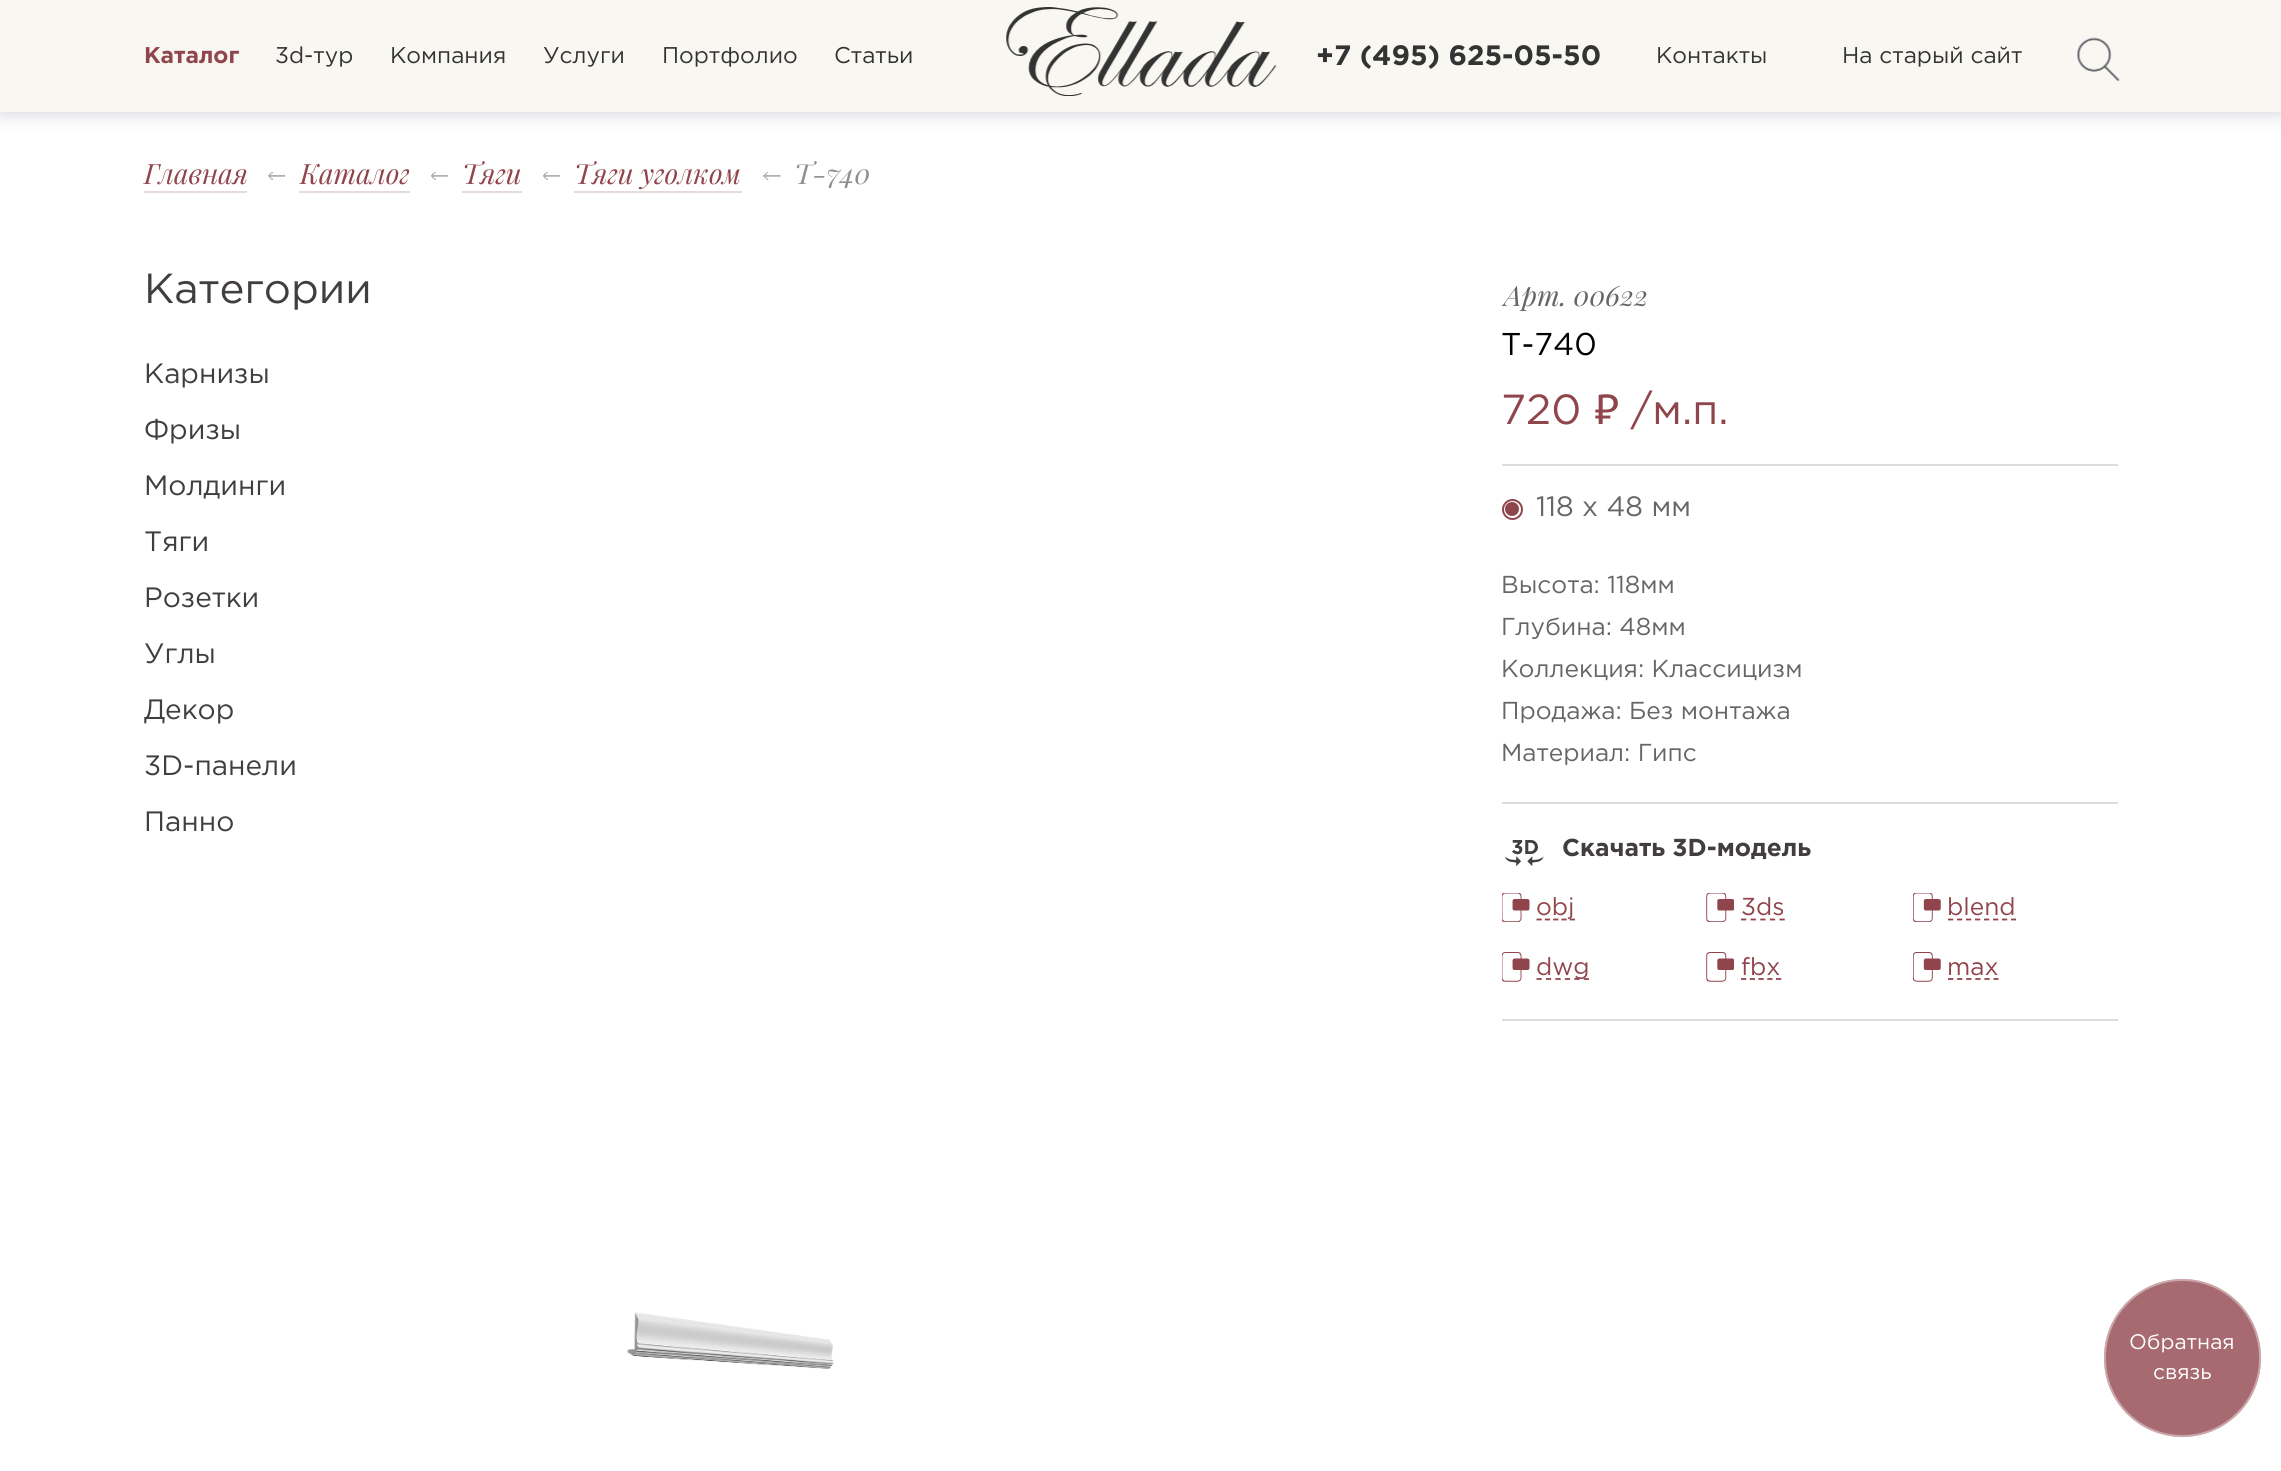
import math
import cairo

surface = cairo.ImageSurface(cairo.FORMAT_RGB24, 2281, 1471)
ctx = cairo.Context(surface)
options = cairo.FontOptions()
options.set_hint_metrics(cairo.HINT_METRICS_OFF)
options.set_hint_style(cairo.HINT_STYLE_NONE)
ctx.set_font_options(options)
ctx.set_miter_limit(4)


def round_rect(x, y, w, h, r):
    ctx.new_sub_path()
    for i, (u, v) in enumerate([(x + w - r, y + h - r), (x + r, y + h - r), (x + r, y + r), (x + w - r, y + r)]):
        ctx.arc(u, v, r, i * math.pi / 2, (i + 1) * math.pi / 2)
    ctx.close_path()


def shadow(x, y, w, h, r, blur, alpha):
    ctx.push_group_with_content(cairo.CONTENT_ALPHA)
    ctx.set_operator(cairo.OPERATOR_SOURCE)
    for i in range(15, -16, -2):
        e = blur * i / 6
        if min(w, h) + 2 * e > 0:
            ctx.set_source_rgba(0, 0, 0, alpha * math.erfc((i - 1) / 8.5) / 2)
            round_rect(x - e, y - e, w + 2 * e, h + 2 * e, max(0, min(r + e + blur * .6, min(w, h) / 2 + e)))
            ctx.fill()
    ctx.mask(ctx.pop_group())


def picture(path, x, y, w, h):
    ctx.save()
    ctx.set_source_surface(cairo.ImageSurface.create_from_png(path), x, y)
    ctx.rectangle(x, y, w, h)
    ctx.fill()
    ctx.restore()


ctx.set_source_rgb(1, 1, 1)
ctx.paint()
ctx.set_source_rgb(0.145, 0.188, 0.286)
shadow(0, 2, 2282, 112, 0, 9, 0.2)
ctx.set_source_rgb(0.976, 0.965, 0.945)
ctx.rectangle(0, 0, 2281, 112)
ctx.fill()
ctx.select_font_face("Gotham", cairo.FONT_SLANT_NORMAL, cairo.FONT_WEIGHT_BOLD)
ctx.set_font_size(22.75)
ctx.set_source_rgb(0.565, 0.271, 0.298)
ctx.move_to(144, 63)
ctx.show_text("Каталог")
ctx.select_font_face("Gotham")
ctx.set_source_rgb(0.2, 0.2, 0.2)
ctx.move_to(275, 63)
ctx.show_text("3d-тур")
ctx.move_to(390, 63)
ctx.show_text("Компания")
ctx.move_to(543, 63)
ctx.show_text("Услуги")
ctx.move_to(662, 63)
ctx.show_text("Портфолио")
ctx.move_to(834, 63)
ctx.show_text("Статьи")
picture("img1.png", 1006, 7, 271, 89)
ctx.select_font_face("Gotham", cairo.FONT_SLANT_NORMAL, cairo.FONT_WEIGHT_BOLD)
ctx.set_font_size(28)
ctx.move_to(1316, 65)
ctx.show_text("+7 (495) 625-05-50")
ctx.select_font_face("Gotham")
ctx.set_font_size(22.75)
ctx.move_to(1656, 63)
ctx.show_text("Контакты")
ctx.move_to(1842, 63)
ctx.show_text("На старый сайт")
picture("img2.png", 2077, 37, 43, 44)
ctx.select_font_face("Playfair Display", cairo.FONT_SLANT_ITALIC)
ctx.set_font_size(28)
ctx.set_source_rgb(0.565, 0.271, 0.298)
ctx.move_to(144, 184)
ctx.show_text("Главная")
ctx.set_source_rgb(0.902, 0.855, 0.859)
ctx.rectangle(144, 191, 103, 2)
ctx.fill()
picture("img3.png", 268, 172, 17, 8)
ctx.set_source_rgb(0.565, 0.271, 0.298)
ctx.move_to(300, 184)
ctx.show_text("Каталог")
ctx.set_source_rgb(0.902, 0.855, 0.859)
ctx.rectangle(299, 191, 111, 2)
ctx.fill()
picture("img4.png", 431, 172, 17, 8)
ctx.set_source_rgb(0.565, 0.271, 0.298)
ctx.move_to(462, 184)
ctx.show_text("Тяги")
ctx.set_source_rgb(0.902, 0.855, 0.859)
ctx.rectangle(462, 191, 60, 2)
ctx.fill()
picture("img4.png", 543, 172, 17, 8)
ctx.set_source_rgb(0.565, 0.271, 0.298)
ctx.move_to(574, 184)
ctx.show_text("Тяги уголком")
ctx.set_source_rgb(0.902, 0.855, 0.859)
ctx.rectangle(574, 191, 168, 2)
ctx.fill()
picture("img5.png", 763, 172, 18, 8)
ctx.set_source_rgb(0.557, 0.557, 0.557)
ctx.move_to(794, 184)
ctx.show_text("T-740")
ctx.select_font_face("Gotham")
ctx.set_font_size(42)
ctx.set_source_rgb(0.259, 0.243, 0.243)
ctx.move_to(144, 303)
ctx.show_text("Категории")
ctx.set_font_size(28)
ctx.move_to(144, 383)
ctx.show_text("Карнизы")
ctx.move_to(144, 439)
ctx.show_text("Фризы")
ctx.move_to(144, 495)
ctx.show_text("Молдинги")
ctx.move_to(144, 551)
ctx.show_text("Тяги")
ctx.move_to(144, 607)
ctx.show_text("Розетки")
ctx.move_to(144, 663)
ctx.show_text("Углы")
ctx.move_to(144, 719)
ctx.show_text("Декор")
ctx.move_to(144, 775)
ctx.show_text("3D-панели")
ctx.move_to(144, 831)
ctx.show_text("Панно")
ctx.select_font_face("Playfair Display", cairo.FONT_SLANT_ITALIC)
ctx.set_source_rgb(0.4, 0.4, 0.4)
ctx.move_to(1504, 306)
ctx.show_text("Арт. 00622")
ctx.select_font_face("Gotham")
ctx.set_font_size(31.5)
ctx.set_source_rgb(0, 0, 0)
ctx.move_to(1501, 355)
ctx.show_text("T-740")
ctx.set_font_size(42)
ctx.set_source_rgb(0.565, 0.271, 0.298)
ctx.move_to(1501, 424)
ctx.show_text("720")
ctx.select_font_face("PT Sans Caption")
ctx.move_to(1594, 424)
ctx.show_text("₽")
ctx.select_font_face("Gotham")
ctx.move_to(1631, 424)
ctx.show_text("/м.п.")
ctx.set_source_rgb(0.867, 0.867, 0.867)
ctx.rectangle(1502, 464, 616, 2)
ctx.fill()
ctx.rectangle(1502, 802, 616, 2)
ctx.fill()
ctx.arc(1512.5, 509.5, 9.5, 0, 2 * math.pi)
ctx.set_source_rgb(0.565, 0.271, 0.298)
ctx.stroke()
ctx.set_font_size(28)
ctx.set_source_rgb(0.4, 0.4, 0.4)
ctx.move_to(1536, 516)
ctx.show_text("118 x 48 мм")
ctx.set_source_rgb(0.565, 0.271, 0.298)
ctx.new_path()
ctx.arc(1512, 509, 7, 0, 2 * math.pi)
ctx.fill()
ctx.set_font_size(24.5)
ctx.set_source_rgb(0.4, 0.4, 0.4)
ctx.move_to(1501, 593)
ctx.show_text("Высота: 118мм")
ctx.move_to(1501, 635)
ctx.show_text("Глубина: 48мм")
ctx.move_to(1501, 677)
ctx.show_text("Коллекция: Классицизм")
ctx.move_to(1501, 719)
ctx.show_text("Продажа: Без монтажа")
ctx.move_to(1501, 761)
ctx.show_text("Материал: Гипс")
ctx.set_source_rgb(0.867, 0.867, 0.867)
ctx.rectangle(1502, 1019, 616, 2)
ctx.fill()
picture("img6.png", 1505, 840, 39, 26)
ctx.select_font_face("Gotham", cairo.FONT_SLANT_NORMAL, cairo.FONT_WEIGHT_BOLD)
ctx.set_source_rgb(0.259, 0.243, 0.243)
ctx.move_to(1562, 856)
ctx.show_text("Скачать 3D-модель")
picture("img7.png", 1502, 893, 28, 29)
ctx.new_path()
ctx.move_to(1536.5, 919.5)
ctx.line_to(1575, 919.5)
ctx.set_source_rgb(0.565, 0.271, 0.298)
ctx.set_line_width(1.8)
ctx.set_dash([5.25, 3.06])
ctx.stroke()
ctx.select_font_face("Gotham")
ctx.move_to(1536, 915)
ctx.show_text("obj")
picture("img8.png", 1706, 893, 28, 29)
ctx.move_to(1741, 915)
ctx.show_text("3ds")
ctx.new_path()
ctx.move_to(1741, 919.5)
ctx.line_to(1785, 919.5)
ctx.set_dash([5.25, 4.38])
ctx.stroke()
picture("img9.png", 1913, 893, 28, 29)
ctx.move_to(1947, 915)
ctx.show_text("blend")
ctx.new_path()
ctx.move_to(1948, 919.5)
ctx.line_to(2016, 919.5)
ctx.set_dash([5.25, 3.75])
ctx.stroke()
picture("img10.png", 1502, 952, 28, 30)
ctx.new_path()
ctx.move_to(1536.5, 979)
ctx.line_to(1589, 979)
ctx.set_dash([5.25, 4.2])
ctx.stroke()
ctx.move_to(1536, 975)
ctx.show_text("dwg")
picture("img11.png", 1706, 952, 28, 30)
ctx.move_to(1741, 975)
ctx.show_text("fbx")
ctx.new_path()
ctx.move_to(1741, 979)
ctx.line_to(1781.5, 979)
ctx.set_dash([5.25, 3.5])
ctx.stroke()
picture("img12.png", 1913, 952, 28, 30)
ctx.move_to(1947, 975)
ctx.show_text("max")
ctx.new_path()
ctx.move_to(1948, 979)
ctx.line_to(1998.5, 979)
ctx.set_dash([5.25, 3.85])
ctx.stroke()
picture("img13.png", 627, 1312, 207, 57)
ctx.set_source_rgb(0.651, 0.416, 0.439)
round_rect(2104, 1279, 157, 158, 78.5)
ctx.fill()
round_rect(2105, 1280, 155, 156, 77.5)
ctx.set_source_rgba(1, 1, 1, 0.4)
ctx.set_line_width(2)
ctx.set_dash([])
ctx.stroke()
ctx.set_font_size(21)
ctx.set_source_rgb(1, 1, 1)
ctx.move_to(2129, 1349)
ctx.show_text("Обратная")
ctx.move_to(2153, 1379)
ctx.show_text("связь")
surface.write_to_png("page.png")
